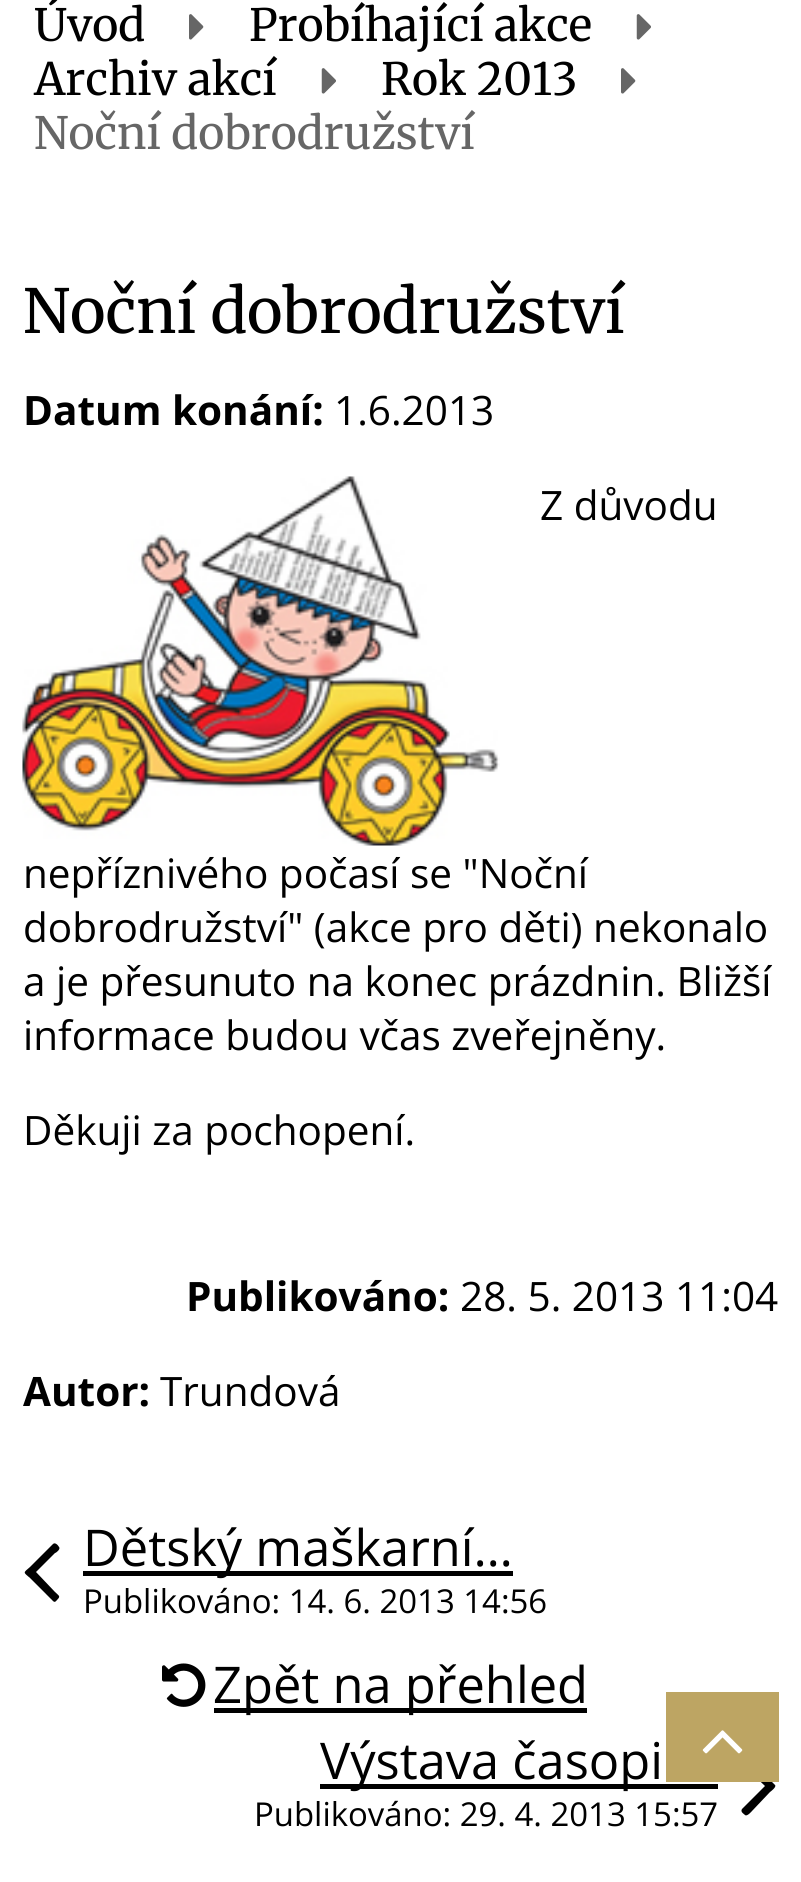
import math
import cairo

surface = cairo.ImageSurface(cairo.FORMAT_RGB24, 801, 1882)
ctx = cairo.Context(surface)
options = cairo.FontOptions()
options.set_hint_metrics(cairo.HINT_METRICS_OFF)
options.set_hint_style(cairo.HINT_STYLE_NONE)
ctx.set_font_options(options)
ctx.set_miter_limit(4)


def picture(path, x, y, w, h):
    ctx.save()
    ctx.set_source_surface(cairo.ImageSurface.create_from_png(path), x, y)
    ctx.rectangle(x, y, w, h)
    ctx.fill()
    ctx.restore()


ctx.set_source_rgb(1, 1, 1)
ctx.paint()
ctx.select_font_face("Merriweather")
ctx.set_font_size(44.5)
ctx.set_source_rgb(0, 0, 0)
ctx.move_to(34, 41)
ctx.show_text("Úvod")
picture("img1.png", 189, 14, 15, 26)
ctx.move_to(249, 41)
ctx.show_text("Probíhající akce")
picture("img2.png", 636, 14, 15, 26)
ctx.move_to(34, 95)
ctx.show_text("Archiv akcí")
picture("img2.png", 321, 68, 15, 26)
ctx.move_to(381, 95)
ctx.show_text("Rok 2013")
picture("img1.png", 621, 68, 15, 26)
ctx.set_source_rgb(0.4, 0.4, 0.4)
ctx.move_to(34, 149)
ctx.show_text("Noční dobrodružství")
ctx.set_font_size(60.75)
ctx.set_source_rgb(0, 0, 0)
ctx.move_to(23, 333)
ctx.show_text("Noční dobrodružství")
ctx.select_font_face("Open Sans", cairo.FONT_SLANT_NORMAL, cairo.FONT_WEIGHT_BOLD)
ctx.set_font_size(40.5)
ctx.move_to(23, 425)
ctx.show_text("Datum konání:")
ctx.select_font_face("Open Sans")
ctx.move_to(334, 425)
ctx.show_text("1.6.2013")
picture("img3.png", 22, 476, 478, 370)
ctx.move_to(540, 520)
ctx.show_text("Z důvodu")
ctx.move_to(23, 888)
ctx.show_text("nepříznivého počasí se \"Noční")
ctx.move_to(23, 942)
ctx.show_text("dobrodružství\" (akce pro děti) nekonalo")
ctx.move_to(23, 996)
ctx.show_text("a je přesunuto na konec prázdnin. Bližší")
ctx.move_to(23, 1050)
ctx.show_text("informace budou včas zveřejněny.")
ctx.move_to(23, 1145)
ctx.show_text("Děkuji za pochopení.")
ctx.select_font_face("Open Sans", cairo.FONT_SLANT_NORMAL, cairo.FONT_WEIGHT_BOLD)
ctx.move_to(186, 1311)
ctx.show_text("Publikováno:")
ctx.select_font_face("Open Sans")
ctx.move_to(460, 1311)
ctx.show_text("28. 5. 2013 11:04")
ctx.select_font_face("Open Sans", cairo.FONT_SLANT_NORMAL, cairo.FONT_WEIGHT_BOLD)
ctx.move_to(23, 1406)
ctx.show_text("Autor:")
ctx.select_font_face("Open Sans")
ctx.move_to(160, 1406)
ctx.show_text("Trundová")
ctx.new_path()
ctx.move_to(59, 1547)
ctx.curve_to(61, 1549, 56, 1553, 55, 1553)
ctx.line_to(36, 1572)
ctx.line_to(55, 1592)
ctx.curve_to(59, 1596, 61, 1596, 57, 1600)
ctx.curve_to(56, 1601, 55, 1603, 53, 1601)
ctx.line_to(30, 1578)
ctx.curve_to(23, 1572, 23, 1573, 30, 1567)
ctx.line_to(53, 1544)
ctx.curve_to(55, 1542, 58, 1545, 59, 1547)
ctx.close_path()
ctx.fill()
ctx.rectangle(83, 1571, 430, 5)
ctx.fill()
ctx.set_font_size(50.6)
ctx.move_to(83, 1566)
ctx.show_text("Dětský maškarní…")
ctx.set_font_size(32.9)
ctx.move_to(83, 1613)
ctx.show_text("Publikováno: 14. 6. 2013 14:56")
picture("img4.png", 162, 1663, 44, 44)
ctx.rectangle(214, 1708, 373, 5)
ctx.fill()
ctx.set_font_size(50.6)
ctx.move_to(213, 1703)
ctx.show_text("Zpět na přehled")
ctx.rectangle(320, 1784, 398, 5)
ctx.fill()
ctx.move_to(320, 1779)
ctx.show_text("Výstava časopi")
ctx.set_font_size(32.9)
ctx.move_to(254, 1826)
ctx.show_text("Publikováno: 29. 4. 2013 15:57")
ctx.new_path()
ctx.move_to(775, 1785)
ctx.curve_to(777, 1787, 770, 1792, 770, 1792)
ctx.line_to(752, 1811)
ctx.curve_to(752, 1811, 747, 1817, 745, 1815)
ctx.curve_to(744, 1814, 740, 1812, 742, 1809)
ctx.line_to(765, 1786)
ctx.line_to(745, 1767)
ctx.curve_to(741, 1763, 739, 1763, 743, 1759)
ctx.curve_to(747, 1755, 747, 1757, 752, 1762)
ctx.close_path()
ctx.fill()
ctx.set_source_rgb(0.741, 0.647, 0.388)
ctx.rectangle(666, 1692, 113, 90)
ctx.fill()
picture("img5.png", 702, 1730, 41, 24)
surface.write_to_png("page.png")
